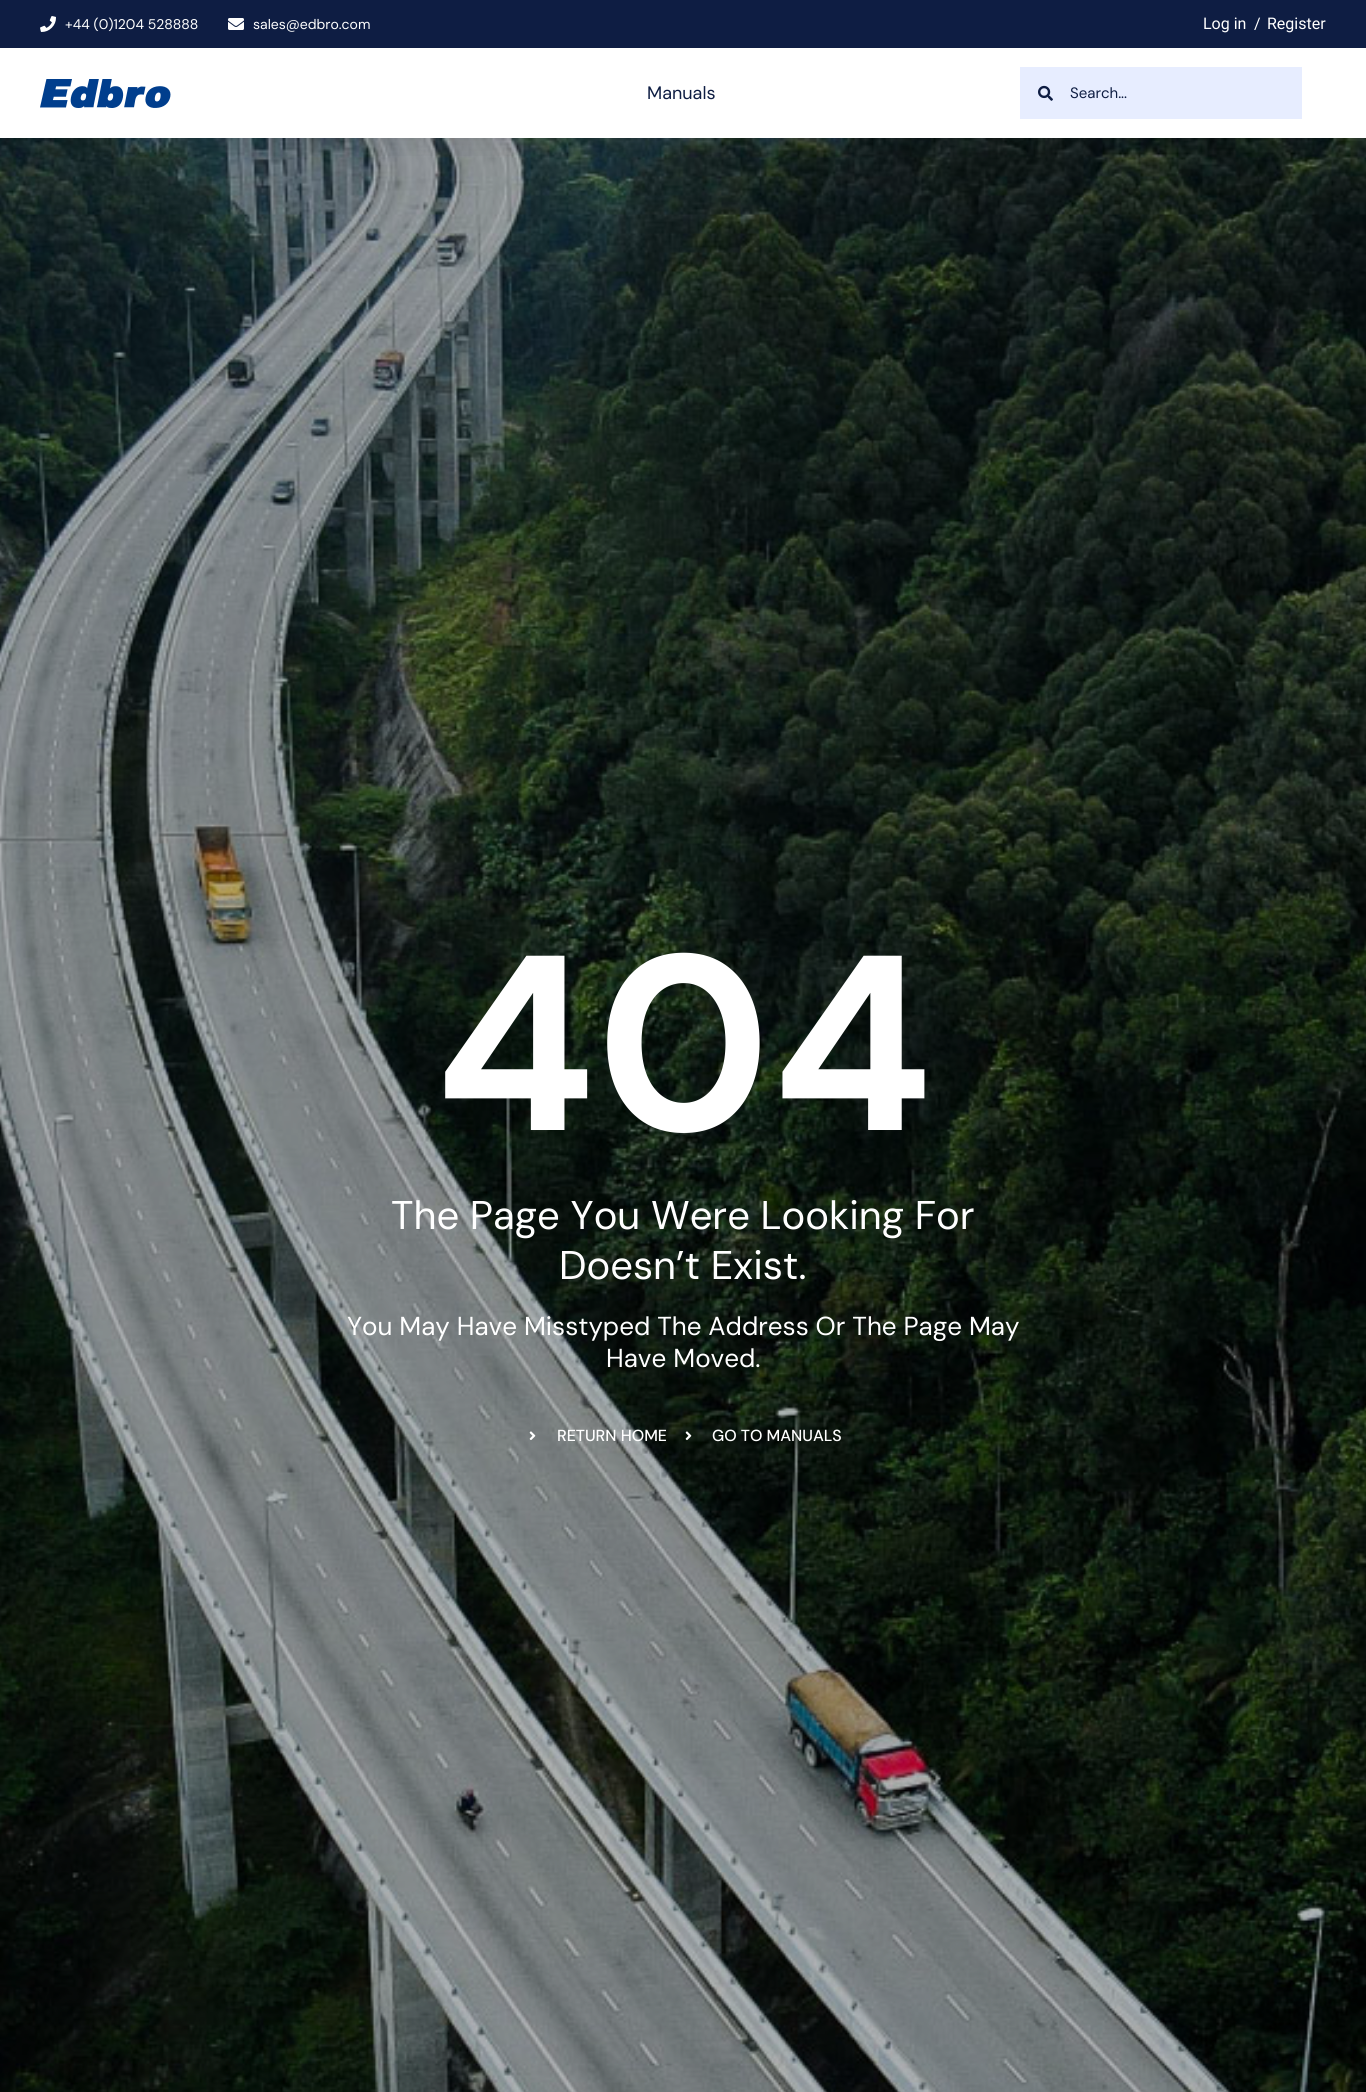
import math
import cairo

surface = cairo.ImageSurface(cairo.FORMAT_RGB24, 1366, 2092)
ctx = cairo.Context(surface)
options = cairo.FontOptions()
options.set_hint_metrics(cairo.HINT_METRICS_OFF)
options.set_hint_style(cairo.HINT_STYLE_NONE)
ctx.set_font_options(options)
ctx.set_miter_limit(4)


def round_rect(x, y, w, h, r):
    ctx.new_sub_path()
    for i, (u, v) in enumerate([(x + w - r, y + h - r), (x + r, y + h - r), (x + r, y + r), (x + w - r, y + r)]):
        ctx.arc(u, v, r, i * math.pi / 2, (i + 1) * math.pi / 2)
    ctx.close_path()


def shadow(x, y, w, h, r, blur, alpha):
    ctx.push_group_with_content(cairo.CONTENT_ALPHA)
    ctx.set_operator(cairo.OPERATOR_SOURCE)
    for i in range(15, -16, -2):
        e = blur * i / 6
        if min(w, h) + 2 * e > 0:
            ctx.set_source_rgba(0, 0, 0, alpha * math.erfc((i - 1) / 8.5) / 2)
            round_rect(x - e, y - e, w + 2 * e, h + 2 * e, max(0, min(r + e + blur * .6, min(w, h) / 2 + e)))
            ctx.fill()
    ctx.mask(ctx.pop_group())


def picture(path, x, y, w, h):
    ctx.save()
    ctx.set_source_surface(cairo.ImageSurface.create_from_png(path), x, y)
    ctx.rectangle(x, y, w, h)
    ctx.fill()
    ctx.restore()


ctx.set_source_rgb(1, 1, 1)
ctx.paint()
picture("img5.png", 0, 138, 1366, 1954)
ctx.save()
ctx.rectangle(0, 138, 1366, 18)
ctx.clip()
ctx.set_source_rgb(0, 0, 0)
shadow(0, 5, 1366, 138, 0, 15, 0.1)
ctx.restore()
ctx.set_source_rgb(0.055, 0.114, 0.263)
ctx.rectangle(0, 0, 1366, 48)
ctx.fill()
picture("img1.png", 40, 16, 16, 16)
ctx.select_font_face("DM Sans")
ctx.set_font_size(14)
ctx.set_source_rgb(1, 1, 1)
ctx.move_to(65, 29)
ctx.show_text("+44 (0)1204 528888")
picture("img2.png", 228, 18, 16, 12)
ctx.move_to(253, 29)
ctx.show_text("sales@edbro.com")
ctx.select_font_face("Roboto")
ctx.set_font_size(16)
ctx.move_to(1203, 29)
ctx.show_text("Log in")
ctx.move_to(1254, 29)
ctx.show_text("/")
ctx.move_to(1267, 29)
ctx.show_text("Register")
picture("img3.png", 40, 79, 131, 29)
ctx.select_font_face("DM Sans")
ctx.set_font_size(18)
ctx.set_source_rgb(0.055, 0.114, 0.263)
ctx.move_to(647, 99)
ctx.show_text("Manuals")
ctx.set_source_rgb(0.906, 0.929, 1)
ctx.rectangle(1020, 67, 282, 52)
ctx.fill()
picture("img4.png", 1038, 85, 15, 16)
ctx.set_font_size(15)
ctx.set_source_rgb(0.055, 0.114, 0.263)
ctx.move_to(1070, 98)
ctx.show_text("Search...")
ctx.select_font_face("DM Sans", cairo.FONT_SLANT_NORMAL, cairo.FONT_WEIGHT_BOLD)
ctx.set_font_size(249)
ctx.set_source_rgb(1, 1, 1)
ctx.move_to(434, 1130)
ctx.show_text("404")
ctx.select_font_face("DM Sans")
ctx.set_font_size(40)
ctx.move_to(391, 1229)
ctx.show_text("The Page You Were Looking For")
ctx.move_to(559, 1279)
ctx.show_text("Doesn’t Exist.")
ctx.set_font_size(26)
ctx.move_to(347, 1335)
ctx.show_text("You May Have Misstyped The Address Or The Page May")
ctx.move_to(606, 1367)
ctx.show_text("Have Moved.")
picture("img6.png", 529, 1431, 7, 9)
ctx.select_font_face("DM Sans Medium")
ctx.set_font_size(16)
ctx.move_to(557, 1441)
ctx.show_text("RETURN HOME")
picture("img7.png", 685, 1431, 7, 10)
ctx.move_to(712, 1441)
ctx.show_text("GO TO MANUALS")
surface.write_to_png("page.png")
